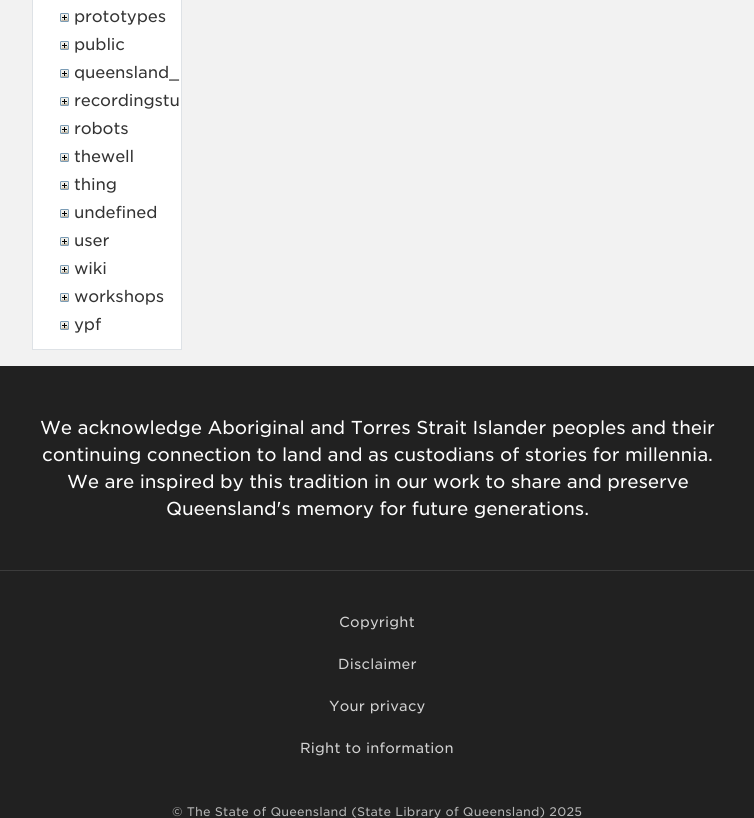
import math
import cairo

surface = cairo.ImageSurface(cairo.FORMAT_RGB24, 754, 818)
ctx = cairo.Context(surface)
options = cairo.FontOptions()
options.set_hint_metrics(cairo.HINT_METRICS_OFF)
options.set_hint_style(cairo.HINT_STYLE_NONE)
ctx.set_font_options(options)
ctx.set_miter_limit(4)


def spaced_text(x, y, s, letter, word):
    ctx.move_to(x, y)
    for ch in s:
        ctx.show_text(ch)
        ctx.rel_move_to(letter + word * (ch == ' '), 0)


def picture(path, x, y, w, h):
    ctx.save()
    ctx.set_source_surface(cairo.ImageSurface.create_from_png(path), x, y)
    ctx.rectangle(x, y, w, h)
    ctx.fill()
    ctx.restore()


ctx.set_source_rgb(0.949, 0.949, 0.949)
ctx.paint()
ctx.set_source_rgb(1, 1, 1)
ctx.rectangle(33, 0, 148, 349)
ctx.fill()
ctx.set_source_rgb(0.871, 0.886, 0.902)
ctx.rectangle(181, 0, 1, 350)
ctx.fill()
ctx.rectangle(32, 349, 150, 1)
ctx.fill()
ctx.rectangle(32, 0, 1, 350)
ctx.fill()
picture("img1.png", 60, 13, 9, 9)
ctx.select_font_face("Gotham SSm")
ctx.set_font_size(16)
ctx.set_source_rgb(0.2, 0.2, 0.2)
spaced_text(74, 22, "prototypes", -0.15, 0)
picture("img1.png", 60, 41, 9, 9)
spaced_text(74, 50, "public", -0.15, 0)
picture("img1.png", 60, 69, 9, 9)
spaced_text(74, 78, "queensland_", -0.15, 0)
picture("img1.png", 60, 97, 9, 9)
spaced_text(74, 106, "recordingstu", -0.15, 0)
picture("img1.png", 60, 125, 9, 9)
spaced_text(74, 134, "robots", -0.15, 0)
picture("img1.png", 60, 153, 9, 9)
spaced_text(74, 162, "thewell", -0.15, 0)
picture("img1.png", 60, 181, 9, 9)
spaced_text(74, 190, "thing", -0.15, 0)
picture("img1.png", 60, 209, 9, 9)
spaced_text(74, 218, "undefined", -0.15, 0)
picture("img1.png", 60, 237, 9, 9)
spaced_text(74, 246, "user", -0.15, 0)
picture("img1.png", 60, 265, 9, 9)
spaced_text(74, 274, "wiki", -0.15, 0)
picture("img1.png", 60, 293, 9, 9)
spaced_text(74, 302, "workshops", -0.15, 0)
picture("img1.png", 60, 321, 9, 9)
spaced_text(74, 330, "ypf", -0.15, 0)
ctx.set_source_rgb(0.129, 0.129, 0.129)
ctx.rectangle(0, 366, 754, 452)
ctx.fill()
ctx.set_font_size(18)
ctx.set_source_rgb(1, 1, 1)
spaced_text(40, 434, "We acknowledge Aboriginal and Torres Strait Islander peoples and their", -0.15, 0)
spaced_text(42, 461, "continuing connection to land and as custodians of stories for millennia.", -0.15, 0)
spaced_text(67, 488, "We are inspired by this tradition in our work to share and preserve", -0.15, 0)
spaced_text(166, 515, "Queensland's memory for future generations.", -0.15, 0)
ctx.set_source_rgb(0.235, 0.235, 0.235)
ctx.rectangle(0, 570, 754, 1)
ctx.fill()
ctx.set_font_size(14)
ctx.set_source_rgb(0.827, 0.827, 0.827)
spaced_text(339, 627, "Copyright", 0.2, 0)
spaced_text(338, 669, "Disclaimer", 0.2, 0)
spaced_text(329, 711, "Your privacy", 0.2, 0)
spaced_text(300, 753, "Right to information", 0.2, 0)
ctx.set_font_size(12)
ctx.set_source_rgb(0.714, 0.714, 0.714)
spaced_text(172, 816, "© The State of Queensland (State Library of Queensland) 2025", 0.2, 0)
surface.write_to_png("page.png")
